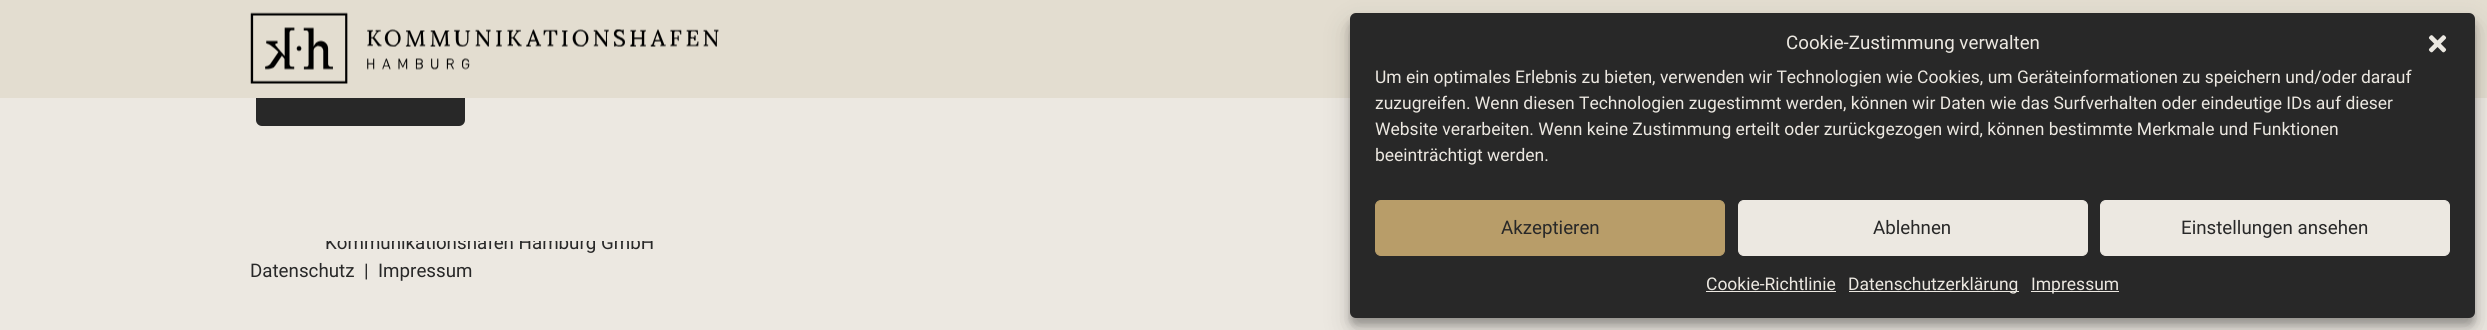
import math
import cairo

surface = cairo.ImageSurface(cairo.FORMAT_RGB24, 2487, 330)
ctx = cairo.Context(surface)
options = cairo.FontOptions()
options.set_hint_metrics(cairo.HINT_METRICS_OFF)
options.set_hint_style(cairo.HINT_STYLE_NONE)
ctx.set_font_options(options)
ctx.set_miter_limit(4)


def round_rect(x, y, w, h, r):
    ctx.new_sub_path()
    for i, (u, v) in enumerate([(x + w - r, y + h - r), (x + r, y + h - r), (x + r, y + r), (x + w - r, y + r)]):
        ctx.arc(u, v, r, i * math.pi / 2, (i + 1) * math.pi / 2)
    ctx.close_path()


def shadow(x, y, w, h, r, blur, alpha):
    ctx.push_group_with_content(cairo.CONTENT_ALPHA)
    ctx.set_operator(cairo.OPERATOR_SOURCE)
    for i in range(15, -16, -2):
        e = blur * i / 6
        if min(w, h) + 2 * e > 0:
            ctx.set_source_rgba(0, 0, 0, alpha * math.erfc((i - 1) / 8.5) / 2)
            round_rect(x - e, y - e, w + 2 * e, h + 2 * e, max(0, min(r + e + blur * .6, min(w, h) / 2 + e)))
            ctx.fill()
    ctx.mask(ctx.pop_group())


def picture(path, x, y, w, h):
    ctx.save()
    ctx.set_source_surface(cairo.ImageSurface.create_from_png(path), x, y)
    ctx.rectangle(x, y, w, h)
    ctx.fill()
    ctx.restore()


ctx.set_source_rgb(0.922, 0.91, 0.882)
ctx.paint()
ctx.select_font_face("Roboto")
ctx.set_font_size(18.75)
ctx.set_source_rgb(0.157, 0.157, 0.157)
ctx.move_to(325, 249)
ctx.show_text("Kommunikationshafen Hamburg GmbH")
ctx.set_source_rgb(0.922, 0.91, 0.882)
ctx.rectangle(326, 234, 327, 7)
ctx.fill()
ctx.set_source_rgb(0.157, 0.157, 0.157)
round_rect(256, 71, 209, 55, 6)
ctx.fill()
ctx.set_source_rgb(0.89, 0.867, 0.816)
ctx.rectangle(0, 0, 2487, 98)
ctx.fill()
picture("img1.png", 250, 12, 469, 72)
ctx.set_source_rgb(0.157, 0.157, 0.157)
ctx.move_to(250, 277)
ctx.show_text("Datenschutz")
ctx.move_to(364, 277)
ctx.show_text("|")
ctx.move_to(378, 277)
ctx.show_text("Impressum")
ctx.set_source_rgb(0, 0, 0)
shadow(1350, 20, 1125, 305, 6, 4, 0.23)
shadow(1350, 25, 1125, 305, 6, 12.5, 0.19)
ctx.set_source_rgb(0.157, 0.157, 0.157)
round_rect(1350, 13, 1125, 305, 6)
ctx.fill()
ctx.set_source_rgb(0.922, 0.91, 0.882)
ctx.move_to(1786, 49)
ctx.show_text("Cookie-Zustimmung verwalten")
picture("img2.png", 2428, 35, 19, 18)
ctx.set_font_size(17.5)
ctx.move_to(1375, 83)
ctx.show_text("Um ein optimales Erlebnis zu bieten, verwenden wir Technologien wie Cookies, um Geräteinformationen zu speichern und/oder darauf")
ctx.move_to(1375, 109)
ctx.show_text("zuzugreifen. Wenn diesen Technologien zugestimmt werden, können wir Daten wie das Surfverhalten oder eindeutige IDs auf dieser")
ctx.move_to(1375, 135)
ctx.show_text("Website verarbeiten. Wenn keine Zustimmung erteilt oder zurückgezogen wird, können bestimmte Merkmale und Funktionen")
ctx.move_to(1375, 161)
ctx.show_text("beeinträchtigt werden.")
ctx.set_source_rgb(0.722, 0.616, 0.412)
round_rect(1375.5, 200.5, 349, 55, 5.5)
ctx.fill_preserve()
ctx.set_line_width(1)
ctx.stroke()
ctx.set_font_size(18.75)
ctx.set_source_rgb(0.157, 0.157, 0.157)
ctx.move_to(1501, 234)
ctx.show_text("Akzeptieren")
ctx.set_source_rgb(0.922, 0.91, 0.882)
round_rect(1738.5, 200.5, 349, 55, 5.5)
ctx.fill_preserve()
ctx.stroke()
ctx.set_source_rgb(0.157, 0.157, 0.157)
ctx.move_to(1873, 234)
ctx.show_text("Ablehnen")
ctx.set_source_rgb(0.922, 0.91, 0.882)
round_rect(2100.5, 200.5, 349, 55, 5.5)
ctx.fill_preserve()
ctx.stroke()
ctx.set_source_rgb(0.157, 0.157, 0.157)
ctx.move_to(2181, 234)
ctx.show_text("Einstellungen ansehen")
ctx.set_font_size(17.5)
ctx.set_source_rgb(0.922, 0.91, 0.882)
ctx.move_to(1706, 290)
ctx.show_text("Cookie-Richtlinie")
ctx.rectangle(1706, 291, 130, 1)
ctx.fill()
ctx.rectangle(1849, 291, 170, 1)
ctx.fill()
ctx.move_to(1848, 290)
ctx.show_text("Datenschutzerklärung")
ctx.rectangle(2031, 291, 88, 1)
ctx.fill()
ctx.move_to(2031, 290)
ctx.show_text("Impressum")
surface.write_to_png("page.png")
